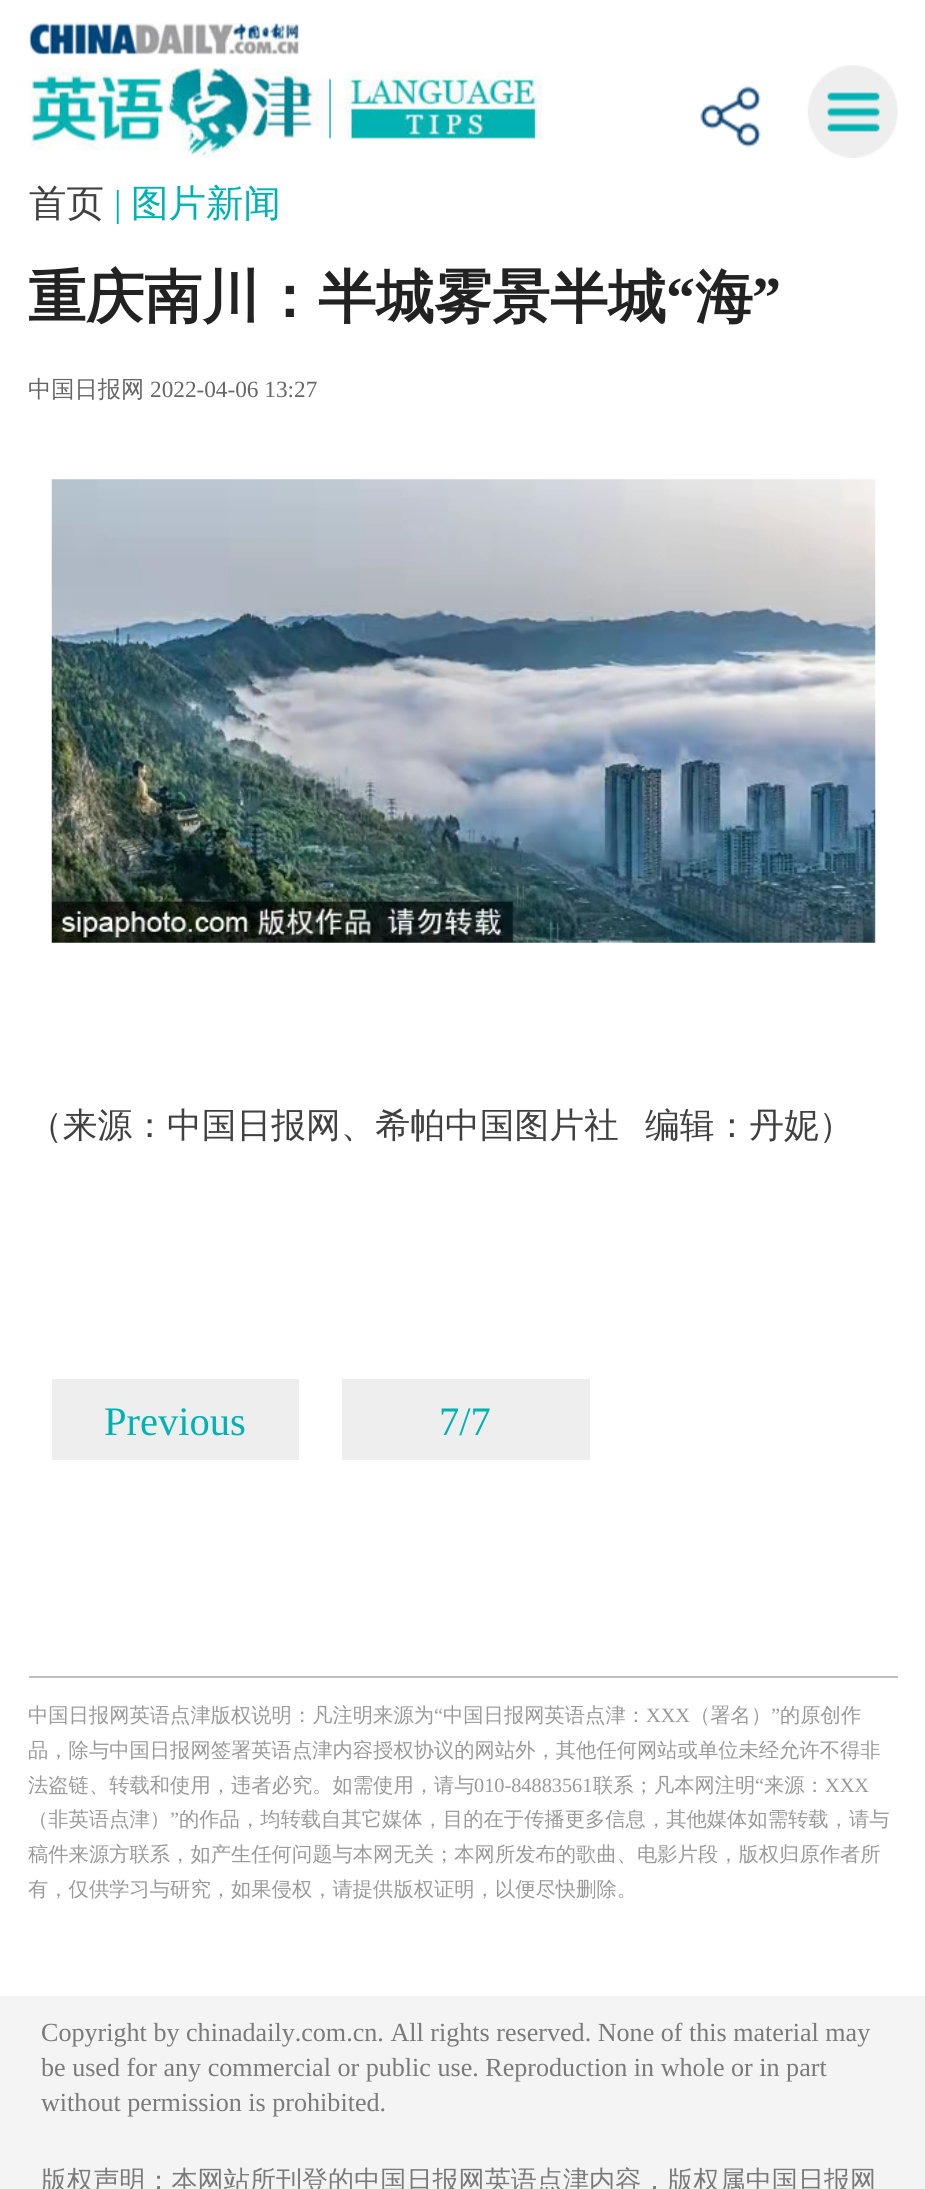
import math
import cairo

surface = cairo.ImageSurface(cairo.FORMAT_RGB24, 925, 2189)
ctx = cairo.Context(surface)
options = cairo.FontOptions()
options.set_hint_metrics(cairo.HINT_METRICS_OFF)
options.set_hint_style(cairo.HINT_STYLE_NONE)
ctx.set_font_options(options)
ctx.set_miter_limit(4)


def picture(path, x, y, w, h):
    ctx.save()
    ctx.set_source_surface(cairo.ImageSurface.create_from_png(path), x, y)
    ctx.rectangle(x, y, w, h)
    ctx.fill()
    ctx.restore()


ctx.set_source_rgb(1, 1, 1)
ctx.paint()
picture("img1.png", 29, 23, 271, 32)
picture("img2.png", 29, 67, 302, 91)
picture("img3.png", 344, 71, 198, 69)
picture("img4.png", 700, 86, 61, 62)
picture("img5.png", 807, 65, 91, 93)
ctx.select_font_face("WenQuanYi Zen Hei Medium")
ctx.set_font_size(37.5)
ctx.set_source_rgb(0.251, 0.251, 0.251)
ctx.move_to(29, 216)
ctx.show_text("首页")
ctx.select_font_face("Liberation Serif")
ctx.set_source_rgb(0, 0.698, 0.698)
ctx.move_to(114, 216)
ctx.show_text("|")
ctx.select_font_face("WenQuanYi Zen Hei Medium")
ctx.move_to(131, 216)
ctx.show_text("图片新闻")
ctx.select_font_face("WenQuanYi Zen Hei", cairo.FONT_SLANT_NORMAL, cairo.FONT_WEIGHT_BOLD)
ctx.set_font_size(58)
ctx.set_source_rgb(0.133, 0.133, 0.133)
ctx.move_to(28, 317)
ctx.show_text("重庆南川：半城雾景半城")
ctx.select_font_face("Liberation Serif", cairo.FONT_SLANT_NORMAL, cairo.FONT_WEIGHT_BOLD)
ctx.move_to(666, 317)
ctx.show_text("“")
ctx.select_font_face("WenQuanYi Zen Hei", cairo.FONT_SLANT_NORMAL, cairo.FONT_WEIGHT_BOLD)
ctx.move_to(695, 317)
ctx.show_text("海")
ctx.select_font_face("Liberation Serif", cairo.FONT_SLANT_NORMAL, cairo.FONT_WEIGHT_BOLD)
ctx.move_to(752, 317)
ctx.show_text("”")
ctx.select_font_face("WenQuanYi Zen Hei Medium")
ctx.set_font_size(23.25)
ctx.set_source_rgb(0.4, 0.4, 0.4)
ctx.move_to(28, 397)
ctx.show_text("中国日报网")
ctx.select_font_face("Liberation Serif")
ctx.move_to(150, 397)
ctx.show_text("2022-04-06 13:27")
picture("img6.png", 51, 479, 825, 464)
ctx.select_font_face("WenQuanYi Zen Hei Medium")
ctx.set_font_size(34.75)
ctx.set_source_rgb(0.251, 0.251, 0.251)
ctx.move_to(28, 1137)
ctx.show_text("（来源：中国日报网、希帕中国图片社")
ctx.move_to(645, 1137)
ctx.show_text("编辑：丹妮）")
ctx.set_source_rgb(0.933, 0.933, 0.933)
ctx.rectangle(52, 1379, 247, 81)
ctx.fill()
ctx.select_font_face("Liberation Serif")
ctx.set_font_size(40.5)
ctx.set_source_rgb(0, 0.698, 0.698)
ctx.move_to(104, 1435)
ctx.show_text("Previous")
ctx.set_source_rgb(0.933, 0.933, 0.933)
ctx.rectangle(342, 1379, 248, 81)
ctx.fill()
ctx.set_source_rgb(0, 0.698, 0.698)
ctx.move_to(439, 1435)
ctx.show_text("7/7")
ctx.set_source_rgb(0.749, 0.749, 0.749)
ctx.rectangle(29, 1676, 869, 2)
ctx.fill()
ctx.select_font_face("WenQuanYi Zen Hei Medium")
ctx.set_font_size(20.3)
ctx.set_source_rgb(0.6, 0.6, 0.6)
ctx.move_to(28, 1722)
ctx.show_text("中国日报网英语点津版权说明：凡注明来源为")
ctx.select_font_face("Liberation Serif")
ctx.move_to(434, 1722)
ctx.show_text("“")
ctx.select_font_face("WenQuanYi Zen Hei Medium")
ctx.move_to(443, 1722)
ctx.show_text("中国日报网英语点津：")
ctx.select_font_face("Liberation Serif")
ctx.move_to(646, 1722)
ctx.show_text("XXX")
ctx.select_font_face("WenQuanYi Zen Hei Medium")
ctx.move_to(690, 1722)
ctx.show_text("（署名）")
ctx.select_font_face("Liberation Serif")
ctx.move_to(771, 1722)
ctx.show_text("”")
ctx.select_font_face("WenQuanYi Zen Hei Medium")
ctx.move_to(780, 1722)
ctx.show_text("的原创作")
ctx.move_to(28, 1757)
ctx.show_text("品，除与中国日报网签署英语点津内容授权协议的网站外，其他任何网站或单位未经允许不得非")
ctx.move_to(28, 1792)
ctx.show_text("法盗链、转载和使用，违者必究。如需使用，请与")
ctx.select_font_face("Liberation Serif")
ctx.move_to(474, 1792)
ctx.show_text("010-84883561")
ctx.select_font_face("WenQuanYi Zen Hei Medium")
ctx.move_to(593, 1792)
ctx.show_text("联系；凡本网注明")
ctx.select_font_face("Liberation Serif")
ctx.move_to(755, 1792)
ctx.show_text("“")
ctx.select_font_face("WenQuanYi Zen Hei Medium")
ctx.move_to(764, 1792)
ctx.show_text("来源：")
ctx.select_font_face("Liberation Serif")
ctx.move_to(825, 1792)
ctx.show_text("XXX")
ctx.select_font_face("WenQuanYi Zen Hei Medium")
ctx.move_to(28, 1826)
ctx.show_text("（非英语点津）")
ctx.select_font_face("Liberation Serif")
ctx.move_to(170, 1826)
ctx.show_text("”")
ctx.select_font_face("WenQuanYi Zen Hei Medium")
ctx.move_to(179, 1826)
ctx.show_text("的作品，均转载自其它媒体，目的在于传播更多信息，其他媒体如需转载，请与")
ctx.move_to(28, 1861)
ctx.show_text("稿件来源方联系，如产生任何问题与本网无关；本网所发布的歌曲、电影片段，版权归原作者所")
ctx.move_to(28, 1896)
ctx.show_text("有，仅供学习与研究，如果侵权，请提供版权证明，以便尽快删除。")
ctx.set_source_rgb(0.957, 0.957, 0.957)
ctx.rectangle(0, 1996, 925, 193)
ctx.fill()
ctx.select_font_face("Liberation Serif")
ctx.set_font_size(26.1)
ctx.set_source_rgb(0.478, 0.478, 0.478)
ctx.move_to(41, 2041)
ctx.show_text("Copyright by chinadaily.com.cn. All rights reserved. None of this material may")
ctx.move_to(41, 2076)
ctx.show_text("be used for any commercial or public use. Reproduction in whole or in part")
ctx.move_to(41, 2111)
ctx.show_text("without permission is prohibited.")
ctx.select_font_face("WenQuanYi Zen Hei Medium")
ctx.move_to(41, 2189)
ctx.show_text("版权声明：本网站所刊登的中国日报网英语点津内容，版权属中国日报网")
surface.write_to_png("page.png")
